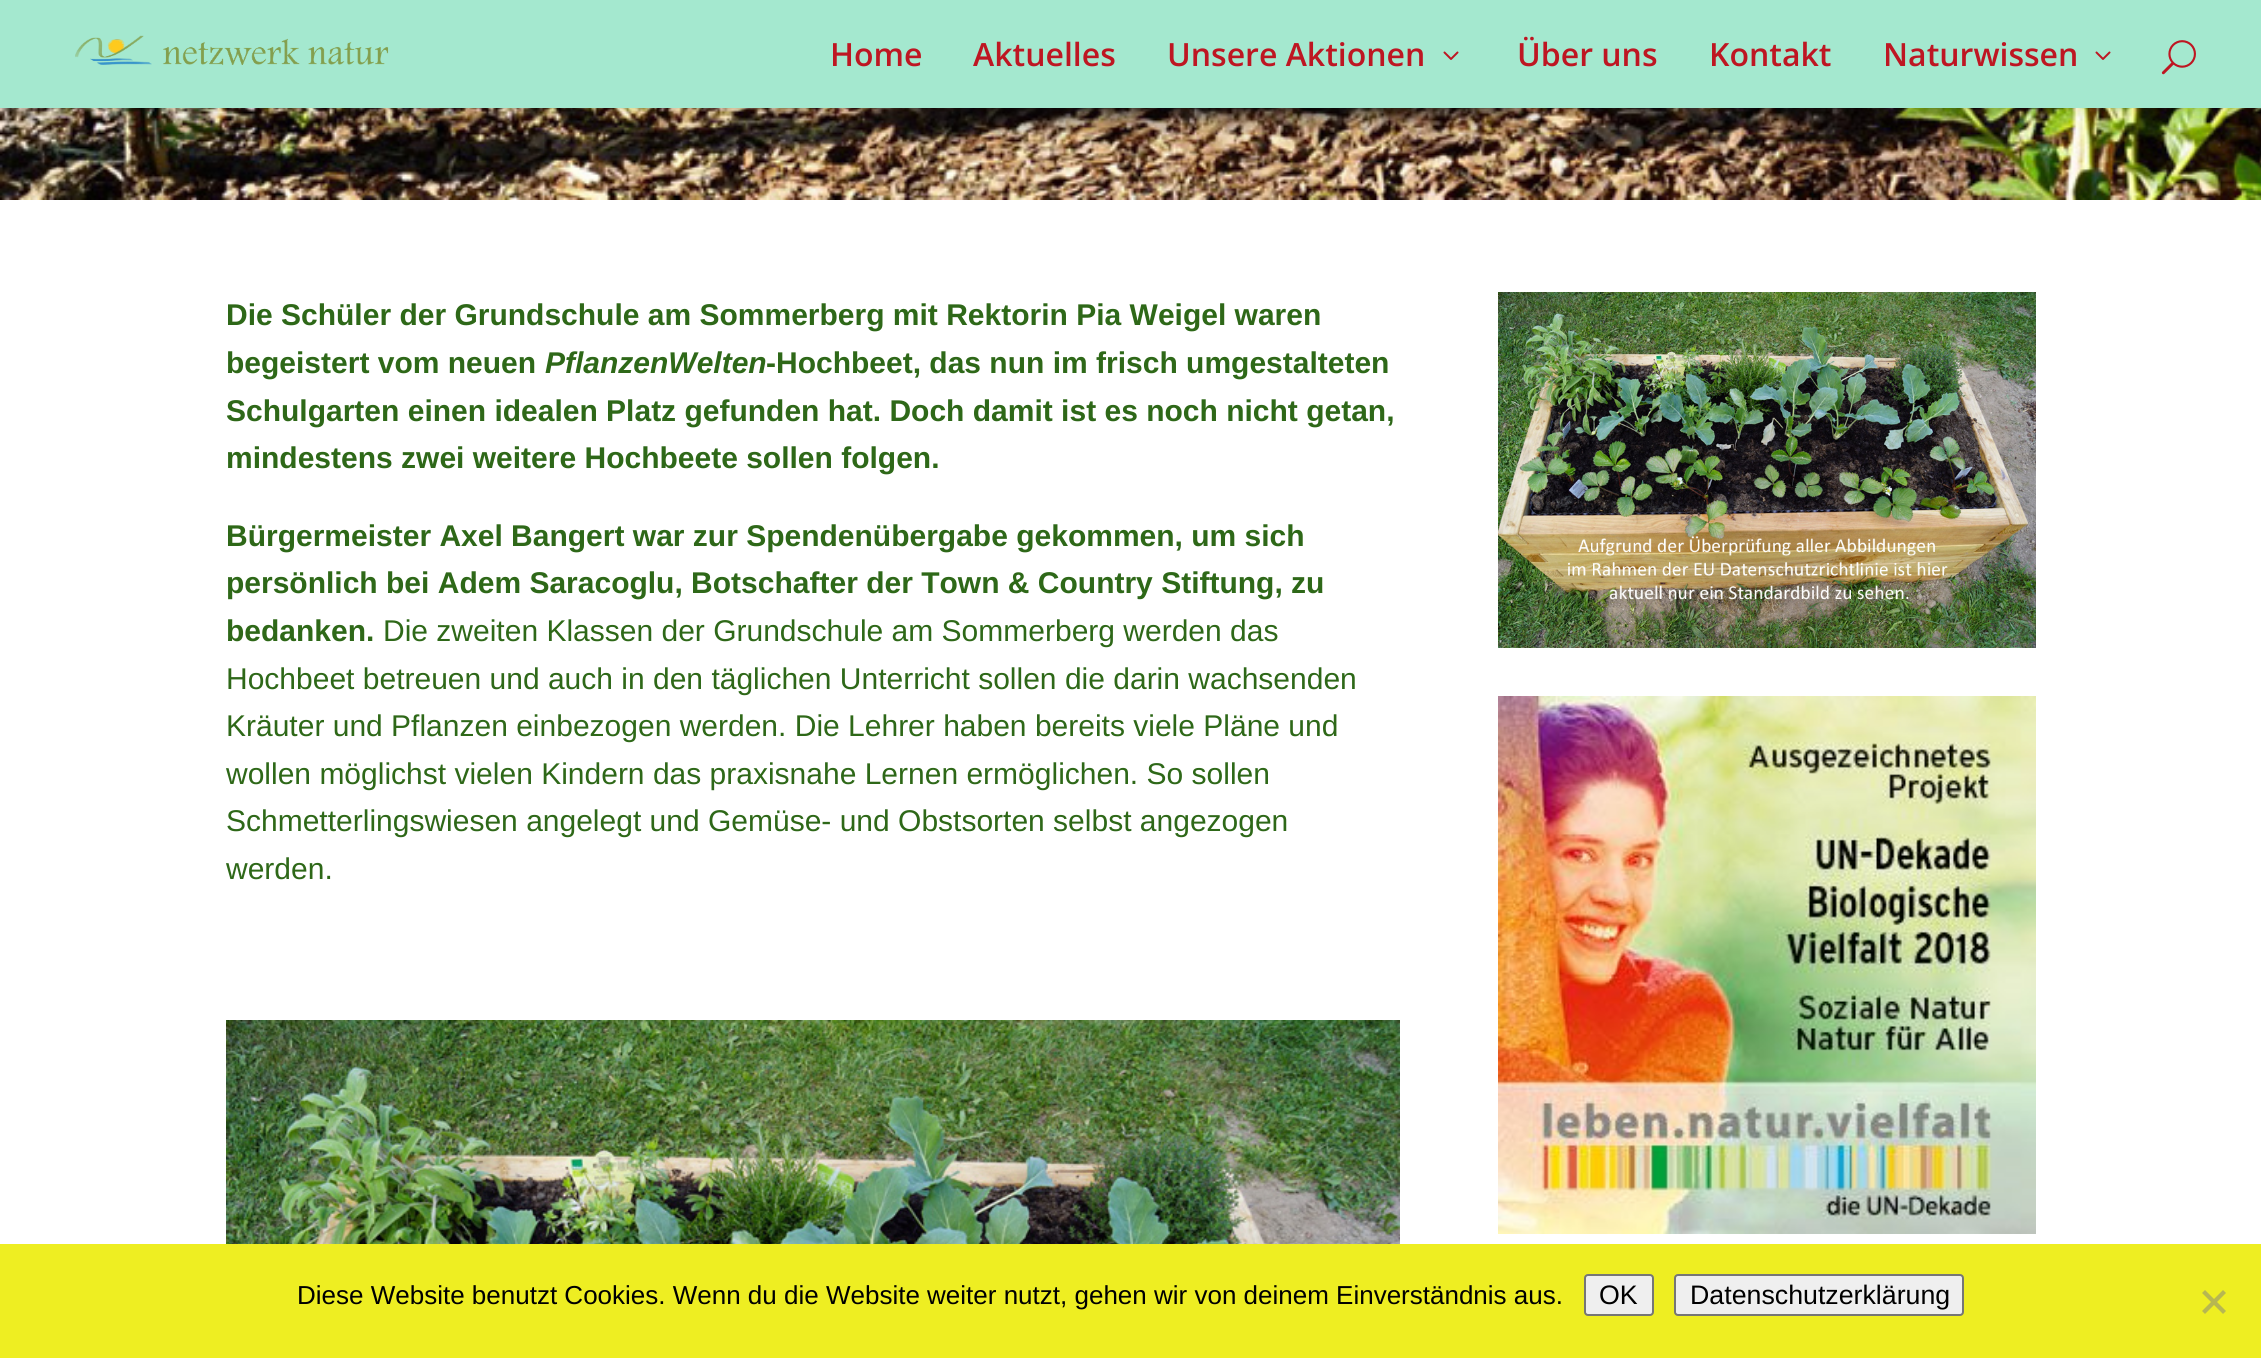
import math
import cairo

surface = cairo.ImageSurface(cairo.FORMAT_RGB24, 2261, 1358)
ctx = cairo.Context(surface)
options = cairo.FontOptions()
options.set_hint_metrics(cairo.HINT_METRICS_OFF)
options.set_hint_style(cairo.HINT_STYLE_NONE)
ctx.set_font_options(options)
ctx.set_miter_limit(4)


def round_rect(x, y, w, h, r):
    ctx.new_sub_path()
    for i, (u, v) in enumerate([(x + w - r, y + h - r), (x + r, y + h - r), (x + r, y + r), (x + w - r, y + r)]):
        ctx.arc(u, v, r, i * math.pi / 2, (i + 1) * math.pi / 2)
    ctx.close_path()


def shadow(x, y, w, h, r, blur, alpha):
    ctx.push_group_with_content(cairo.CONTENT_ALPHA)
    ctx.set_operator(cairo.OPERATOR_SOURCE)
    for i in range(15, -16, -2):
        e = blur * i / 6
        if min(w, h) + 2 * e > 0:
            ctx.set_source_rgba(0, 0, 0, alpha * math.erfc((i - 1) / 8.5) / 2)
            round_rect(x - e, y - e, w + 2 * e, h + 2 * e, max(0, min(r + e + blur * .6, min(w, h) / 2 + e)))
            ctx.fill()
    ctx.mask(ctx.pop_group())


def picture(path, x, y, w, h):
    ctx.save()
    ctx.set_source_surface(cairo.ImageSurface.create_from_png(path), x, y)
    ctx.rectangle(x, y, w, h)
    ctx.fill()
    ctx.restore()


ctx.set_source_rgb(1, 1, 1)
ctx.paint()
picture("img4.png", 0, 108, 2261, 92)
ctx.set_source_rgb(0, 0, 0)
shadow(0, 0, 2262, 108, 0, 7, 0.1)
ctx.set_source_rgb(0.643, 0.91, 0.812)
ctx.rectangle(0, 0, 2261, 108)
ctx.fill()
picture("img1.png", 75, 35, 314, 30)
ctx.select_font_face("Open Sans SemiBold")
ctx.set_font_size(32)
ctx.set_source_rgb(0.745, 0.086, 0.133)
ctx.move_to(830, 66)
ctx.show_text("Home")
ctx.move_to(973, 66)
ctx.show_text("Aktuelles")
ctx.move_to(1167, 66)
ctx.show_text("Unsere Aktionen")
picture("img2.png", 1443, 51, 16, 9)
ctx.move_to(1517, 66)
ctx.show_text("Über uns")
ctx.move_to(1709, 66)
ctx.show_text("Kontakt")
ctx.move_to(1883, 66)
ctx.show_text("Naturwissen")
picture("img2.png", 2095, 51, 16, 9)
picture("img3.png", 2161, 40, 35, 35)
ctx.select_font_face("Liberation Sans", cairo.FONT_SLANT_NORMAL, cairo.FONT_WEIGHT_BOLD)
ctx.set_font_size(30)
ctx.set_source_rgb(0.18, 0.408, 0.094)
ctx.move_to(226, 325)
ctx.show_text("Die Schüler der Grundschule am Sommerberg mit Rektorin Pia Weigel waren")
ctx.move_to(226, 373)
ctx.show_text("begeistert vom neuen")
ctx.select_font_face("Liberation Sans", cairo.FONT_SLANT_ITALIC, cairo.FONT_WEIGHT_BOLD)
ctx.move_to(545, 373)
ctx.show_text("PflanzenWelten")
ctx.select_font_face("Liberation Sans", cairo.FONT_SLANT_NORMAL, cairo.FONT_WEIGHT_BOLD)
ctx.move_to(766, 373)
ctx.show_text("-Hochbeet, das nun im frisch umgestalteten")
ctx.move_to(226, 421)
ctx.show_text("Schulgarten einen idealen Platz gefunden hat. Doch damit ist es noch nicht getan,")
ctx.move_to(226, 468)
ctx.show_text("mindestens zwei weitere Hochbeete sollen folgen.")
ctx.move_to(226, 546)
ctx.show_text("Bürgermeister Axel Bangert war zur Spendenübergabe gekommen, um sich")
ctx.move_to(226, 593)
ctx.show_text("persönlich bei Adem Saracoglu, Botschafter der Town & Country Stiftung, zu")
ctx.move_to(226, 641)
ctx.show_text("bedanken.")
ctx.select_font_face("Liberation Sans")
ctx.move_to(383, 641)
ctx.show_text("Die zweiten Klassen der Grundschule am Sommerberg werden das")
ctx.move_to(226, 689)
ctx.show_text("Hochbeet betreuen und auch in den täglichen Unterricht sollen die darin wachsenden")
ctx.move_to(226, 736)
ctx.show_text("Kräuter und Pflanzen einbezogen werden. Die Lehrer haben bereits viele Pläne und")
ctx.move_to(226, 784)
ctx.show_text("wollen möglichst vielen Kindern das praxisnahe Lernen ermöglichen. So sollen")
ctx.move_to(226, 831)
ctx.show_text("Schmetterlingswiesen angelegt und Gemüse- und Obstsorten selbst angezogen")
ctx.move_to(226, 879)
ctx.show_text("werden.")
picture("img5.png", 226, 1020, 1174, 224)
picture("img6.png", 1498, 292, 538, 356)
picture("img7.png", 1498, 696, 538, 538)
ctx.set_source_rgb(0.933, 0.933, 0.133)
ctx.rectangle(0, 1244, 2261, 114)
ctx.fill()
ctx.set_font_size(26)
ctx.set_source_rgb(0, 0, 0)
ctx.move_to(297, 1304)
ctx.show_text("Diese Website benutzt Cookies. Wenn du die Website weiter nutzt, gehen wir von deinem Einverständnis aus.")
ctx.set_source_rgb(0.937, 0.937, 0.937)
round_rect(1585, 1275, 68, 40, 3)
ctx.fill_preserve()
ctx.set_source_rgb(0.463, 0.463, 0.463)
ctx.stroke()
ctx.set_font_size(26.75)
ctx.set_source_rgb(0, 0, 0)
ctx.move_to(1599, 1304)
ctx.show_text("OK")
ctx.set_source_rgb(0.937, 0.937, 0.937)
round_rect(1675, 1275, 288, 40, 3)
ctx.fill_preserve()
ctx.set_source_rgb(0.463, 0.463, 0.463)
ctx.stroke()
ctx.set_source_rgb(0, 0, 0)
ctx.move_to(1690, 1304)
ctx.show_text("Datenschutzerklärung")
ctx.set_source_rgb(0.718, 0.718, 0.318)
ctx.new_path()
ctx.move_to(2223, 1290)
ctx.line_to(2226, 1293)
ctx.line_to(2205, 1314)
ctx.line_to(2202, 1311)
ctx.close_path()
ctx.fill()
ctx.new_path()
ctx.move_to(2202, 1293)
ctx.line_to(2205, 1290)
ctx.line_to(2226, 1311)
ctx.line_to(2223, 1314)
ctx.close_path()
ctx.fill()
surface.write_to_png("page.png")
